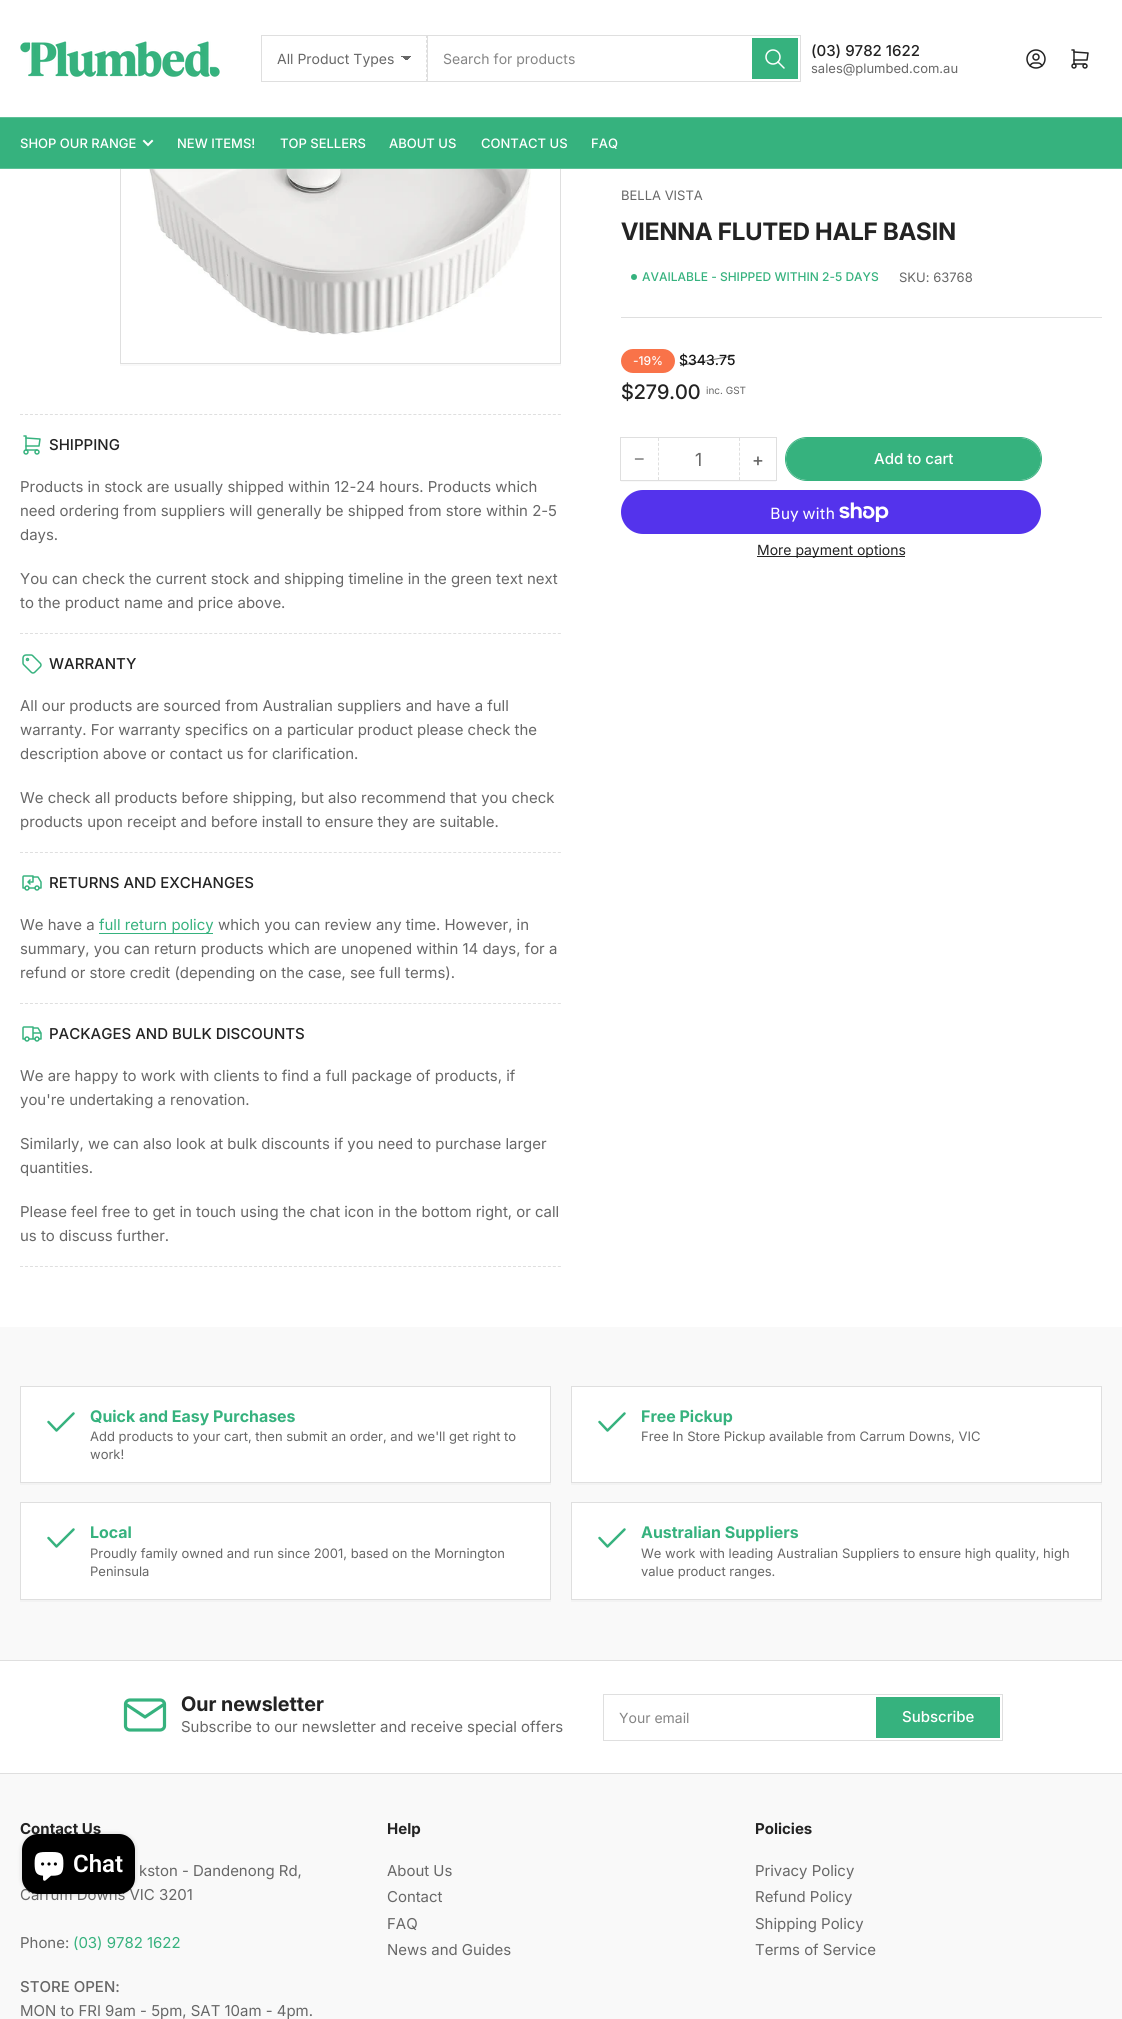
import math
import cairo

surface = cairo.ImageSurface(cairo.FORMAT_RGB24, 1122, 2019)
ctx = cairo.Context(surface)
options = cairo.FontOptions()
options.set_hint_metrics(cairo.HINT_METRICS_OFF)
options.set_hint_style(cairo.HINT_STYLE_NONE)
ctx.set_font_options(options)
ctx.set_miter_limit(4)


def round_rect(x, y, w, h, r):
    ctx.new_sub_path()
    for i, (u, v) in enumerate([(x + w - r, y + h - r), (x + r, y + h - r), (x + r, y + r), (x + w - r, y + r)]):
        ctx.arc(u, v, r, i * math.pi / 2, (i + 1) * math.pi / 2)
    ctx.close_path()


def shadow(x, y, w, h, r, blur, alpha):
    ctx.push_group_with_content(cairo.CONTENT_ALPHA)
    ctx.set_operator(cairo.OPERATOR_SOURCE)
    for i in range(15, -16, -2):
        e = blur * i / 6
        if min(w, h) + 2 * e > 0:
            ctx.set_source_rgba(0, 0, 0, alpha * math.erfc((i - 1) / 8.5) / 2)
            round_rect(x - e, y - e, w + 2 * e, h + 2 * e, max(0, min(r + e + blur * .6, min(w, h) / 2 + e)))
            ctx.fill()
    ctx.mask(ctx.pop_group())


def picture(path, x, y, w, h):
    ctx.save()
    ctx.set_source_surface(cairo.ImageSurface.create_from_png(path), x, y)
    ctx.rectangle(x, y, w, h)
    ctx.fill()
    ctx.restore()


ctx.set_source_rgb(1, 1, 1)
ctx.paint()
ctx.rectangle(120.5, 20.5, 440, 343)
ctx.set_source_rgb(0.875, 0.875, 0.875)
ctx.set_line_width(1)
ctx.stroke()
ctx.set_source_rgb(1, 1, 1)
ctx.rectangle(120, 20, 441, 97)
ctx.fill()
picture("img1.png", 20, 41, 200, 36)
gradient = cairo.LinearGradient(406, 56, 411, 61)
gradient.add_color_stop_rgba(0.5, 0.404, 0.404, 0.404, 1)
gradient.add_color_stop_rgba(0.5, 1, 1, 1, 1)
ctx.set_source(gradient)
ctx.rectangle(406, 56, 5, 4)
ctx.fill()
gradient = cairo.LinearGradient(401, 61, 406, 56)
gradient.add_color_stop_rgba(0.5, 1, 1, 1, 1)
gradient.add_color_stop_rgba(0.5, 0.404, 0.404, 0.404, 1)
ctx.set_source(gradient)
ctx.rectangle(401, 56, 5, 4)
ctx.fill()
ctx.set_source_rgb(0.875, 0.875, 0.875)
ctx.rectangle(261, 35, 166, 1)
ctx.fill()
ctx.new_path()
ctx.move_to(426.5, 35)
ctx.line_to(426.5, 82)
ctx.set_dash([3, 1.89])
ctx.stroke()
ctx.rectangle(261, 81, 166, 1)
ctx.fill()
ctx.rectangle(261, 35, 1, 47)
ctx.fill()
ctx.select_font_face("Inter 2")
ctx.set_font_size(14)
ctx.set_source_rgb(0.404, 0.404, 0.404)
ctx.move_to(277, 64)
ctx.show_text("All Product Types")
ctx.rectangle(427.5, 35.5, 373, 46)
ctx.set_source_rgb(0.875, 0.875, 0.875)
ctx.set_dash([])
ctx.stroke()
ctx.set_source_rgb(0.522, 0.522, 0.522)
ctx.move_to(443, 64)
ctx.show_text("Search for products")
ctx.rectangle(752.5, 38.5, 45, 40)
ctx.set_source_rgb(0.212, 0.698, 0.494)
ctx.stroke()
ctx.rectangle(753, 39, 44, 39)
ctx.fill()
picture("img2.png", 765, 49, 20, 20)
ctx.select_font_face("Inter Medium")
ctx.set_font_size(15)
ctx.set_source_rgb(0.137, 0.137, 0.137)
ctx.move_to(811, 56)
ctx.show_text("(03) 9782 1622")
ctx.select_font_face("Inter 2")
ctx.set_font_size(13)
ctx.set_source_rgb(0.404, 0.404, 0.404)
ctx.move_to(811, 73)
ctx.show_text("sales@plumbed.com.au")
picture("img3.png", 1026, 49, 20, 20)
picture("img4.png", 1071, 49, 18, 20)
ctx.set_source_rgb(0.212, 0.698, 0.494)
ctx.rectangle(0, 118, 1122, 50)
ctx.fill()
ctx.set_source_rgb(0.369, 0.757, 0.596)
ctx.rectangle(0, 117, 1122, 1)
ctx.fill()
ctx.rectangle(0, 168, 1122, 1)
ctx.fill()
ctx.select_font_face("Inter Medium")
ctx.set_source_rgb(1, 1, 1)
ctx.move_to(20, 148)
ctx.show_text("SHOP OUR RANGE")
ctx.new_path()
ctx.move_to(152, 141)
ctx.line_to(148, 145)
ctx.line_to(144, 141)
ctx.set_line_width(2)
ctx.set_line_cap(cairo.LINE_CAP_SQUARE)
ctx.stroke()
ctx.move_to(177, 148)
ctx.show_text("NEW ITEMS!")
ctx.move_to(280, 148)
ctx.show_text("TOP SELLERS")
ctx.move_to(389, 148)
ctx.show_text("ABOUT US")
ctx.move_to(481, 148)
ctx.show_text("CONTACT US")
ctx.move_to(591, 148)
ctx.show_text("FAQ")
ctx.set_source_rgb(0.976, 0.976, 0.976)
ctx.rectangle(120, 364, 441, 2)
ctx.fill()
picture("img5.png", 149, 169, 382, 166)
ctx.set_source_rgb(0.875, 0.875, 0.875)
ctx.rectangle(621, 317, 481, 1)
ctx.fill()
ctx.select_font_face("Inter 2")
ctx.set_source_rgb(0.404, 0.404, 0.404)
ctx.move_to(621, 200)
ctx.show_text("BELLA VISTA")
ctx.select_font_face("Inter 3", cairo.FONT_SLANT_NORMAL, cairo.FONT_WEIGHT_BOLD)
ctx.set_font_size(24)
ctx.set_source_rgb(0.137, 0.137, 0.137)
ctx.move_to(621, 240)
ctx.show_text("VIENNA FLUTED HALF BASIN")
ctx.set_source_rgb(0.212, 0.698, 0.494)
ctx.new_path()
ctx.arc(634, 277, 3, 0, 2 * math.pi)
ctx.fill()
ctx.select_font_face("Inter Medium")
ctx.set_font_size(12)
ctx.move_to(642, 281)
ctx.show_text("AVAILABLE - SHIPPED WITHIN 2-5 DAYS")
ctx.select_font_face("Inter 2")
ctx.set_font_size(13)
ctx.set_source_rgb(0.404, 0.404, 0.404)
ctx.move_to(899, 282)
ctx.show_text("SKU: 63768")
ctx.set_source_rgb(0.973, 0.451, 0.286)
round_rect(622, 350, 52, 22, 11)
ctx.fill_preserve()
ctx.set_line_cap(cairo.LINE_CAP_BUTT)
ctx.stroke()
ctx.select_font_face("Inter Medium")
ctx.set_font_size(12)
ctx.set_source_rgb(1, 1, 1)
ctx.move_to(633, 365)
ctx.show_text("-19%")
ctx.set_font_size(14)
ctx.set_source_rgb(0.086, 0.086, 0.086)
ctx.move_to(679, 365)
ctx.show_text("$343.75")
ctx.set_source_rgba(0.086, 0.086, 0.086, 0.6)
ctx.new_path()
ctx.move_to(680, 365)
ctx.line_to(735, 355)
ctx.line_to(735, 356)
ctx.line_to(680, 366)
ctx.close_path()
ctx.fill()
ctx.select_font_face("Inter 2 Medium")
ctx.set_font_size(20)
ctx.set_source_rgb(0.137, 0.137, 0.137)
ctx.move_to(621, 399)
ctx.show_text("$279.00")
ctx.select_font_face("Inter 2")
ctx.set_font_size(10)
ctx.set_source_rgb(0.404, 0.404, 0.404)
ctx.move_to(706, 394)
ctx.show_text("inc. GST")
ctx.set_source_rgb(0.976, 0.976, 0.976)
ctx.rectangle(621, 481, 155, 1)
ctx.fill()
ctx.rectangle(620.5, 437.5, 156, 43)
ctx.set_source_rgb(0.875, 0.875, 0.875)
ctx.set_line_width(1)
ctx.stroke()
ctx.select_font_face("Liberation Sans")
ctx.set_font_size(18)
ctx.set_source_rgb(0.404, 0.404, 0.404)
ctx.move_to(634, 465)
ctx.show_text("−")
ctx.new_path()
ctx.move_to(739.5, 438)
ctx.line_to(739.5, 480)
ctx.set_source_rgb(0.875, 0.875, 0.875)
ctx.set_dash([3, 1.88])
ctx.stroke()
ctx.new_path()
ctx.move_to(658.5, 438)
ctx.line_to(658.5, 480)
ctx.stroke()
ctx.select_font_face("Inter 3")
ctx.set_source_rgb(0.404, 0.404, 0.404)
ctx.move_to(695, 466)
ctx.show_text("1")
ctx.select_font_face("Inter 3 Medium")
ctx.move_to(752, 466)
ctx.show_text("+")
round_rect(785.5, 437.5, 256, 43, 21.5)
ctx.set_source_rgb(0.212, 0.698, 0.494)
ctx.set_dash([])
ctx.stroke()
round_rect(786, 438, 255, 42, 21)
ctx.fill()
ctx.select_font_face("Inter Medium")
ctx.set_font_size(15)
ctx.set_source_rgb(1, 1, 1)
ctx.move_to(874, 464)
ctx.show_text("Add to cart")
ctx.set_source_rgb(0.329, 0.2, 0.922)
round_rect(621, 490, 420, 44, 22)
ctx.fill()
ctx.select_font_face("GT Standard")
ctx.set_font_size(16)
ctx.set_source_rgb(1, 1, 1)
ctx.move_to(770, 519)
ctx.show_text("Buy with")
picture("img6.png", 839, 502, 50, 20)
ctx.set_source_rgb(0.137, 0.137, 0.137)
ctx.rectangle(757, 556, 148, 1)
ctx.fill()
ctx.select_font_face("Inter 2")
ctx.set_font_size(14)
ctx.move_to(757, 555)
ctx.show_text("More payment options")
ctx.new_path()
ctx.move_to(20, 414.5)
ctx.line_to(561, 414.5)
ctx.set_source_rgb(0.875, 0.875, 0.875)
ctx.set_dash([3, 1.98])
ctx.stroke()
ctx.new_path()
ctx.move_to(20, 633.5)
ctx.line_to(561, 633.5)
ctx.stroke()
picture("img7.png", 23, 435, 18, 20)
ctx.select_font_face("Inter Medium")
ctx.set_font_size(15)
ctx.set_source_rgb(0.137, 0.137, 0.137)
ctx.move_to(49, 450)
ctx.show_text("SHIPPING")
ctx.select_font_face("Inter")
ctx.set_source_rgb(0.404, 0.404, 0.404)
ctx.move_to(20, 492)
ctx.show_text("Products in stock are usually shipped within 12-24 hours. Products which")
ctx.move_to(20, 516)
ctx.show_text("need ordering from suppliers will generally be shipped from store within 2-5")
ctx.move_to(20, 540)
ctx.show_text("days.")
ctx.move_to(20, 584)
ctx.show_text("You can check the current stock and shipping timeline in the green text next")
ctx.move_to(20, 608)
ctx.show_text("to the product name and price above.")
ctx.new_path()
ctx.move_to(20, 852.5)
ctx.line_to(561, 852.5)
ctx.set_source_rgb(0.875, 0.875, 0.875)
ctx.stroke()
picture("img8.png", 22, 654, 20, 20)
ctx.select_font_face("Inter Medium")
ctx.set_source_rgb(0.137, 0.137, 0.137)
ctx.move_to(49, 669)
ctx.show_text("WARRANTY")
ctx.select_font_face("Inter")
ctx.set_source_rgb(0.404, 0.404, 0.404)
ctx.move_to(20, 711)
ctx.show_text("All our products are sourced from Australian suppliers and have a full")
ctx.move_to(20, 735)
ctx.show_text("warranty. For warranty specifics on a particular product please check the")
ctx.move_to(20, 759)
ctx.show_text("description above or contact us for clarification.")
ctx.move_to(20, 803)
ctx.show_text("We check all products before shipping, but also recommend that you check")
ctx.move_to(20, 827)
ctx.show_text("products upon receipt and before install to ensure they are suitable.")
ctx.new_path()
ctx.move_to(20, 1003.5)
ctx.line_to(561, 1003.5)
ctx.set_source_rgb(0.875, 0.875, 0.875)
ctx.stroke()
picture("img9.png", 22, 875, 20, 16)
ctx.select_font_face("Inter Medium")
ctx.set_source_rgb(0.137, 0.137, 0.137)
ctx.move_to(49, 888)
ctx.show_text("RETURNS AND EXCHANGES")
ctx.select_font_face("Inter")
ctx.set_source_rgb(0.404, 0.404, 0.404)
ctx.move_to(20, 930)
ctx.show_text("We have a")
ctx.set_source_rgb(0.212, 0.698, 0.494)
ctx.rectangle(99, 933, 114, 1)
ctx.fill()
ctx.move_to(99, 930)
ctx.show_text("full return policy")
ctx.set_source_rgb(0.404, 0.404, 0.404)
ctx.move_to(218, 930)
ctx.show_text("which you can review any time. However, in")
ctx.move_to(20, 954)
ctx.show_text("summary, you can return products which are unopened within 14 days, for a")
ctx.move_to(20, 978)
ctx.show_text("refund or store credit (depending on the case, see full terms).")
ctx.new_path()
ctx.move_to(20, 1266.5)
ctx.line_to(561, 1266.5)
ctx.set_source_rgb(0.875, 0.875, 0.875)
ctx.stroke()
picture("img10.png", 22, 1026, 20, 16)
ctx.select_font_face("Inter Medium")
ctx.set_source_rgb(0.137, 0.137, 0.137)
ctx.move_to(49, 1039)
ctx.show_text("PACKAGES AND BULK DISCOUNTS")
ctx.select_font_face("Inter")
ctx.set_source_rgb(0.404, 0.404, 0.404)
ctx.move_to(20, 1081)
ctx.show_text("We are happy to work with clients to find a full package of products, if")
ctx.move_to(20, 1105)
ctx.show_text("you're undertaking a renovation.")
ctx.move_to(20, 1149)
ctx.show_text("Similarly, we can also look at bulk discounts if you need to purchase larger")
ctx.move_to(20, 1173)
ctx.show_text("quantities.")
ctx.move_to(20, 1217)
ctx.show_text("Please feel free to get in touch using the chat icon in the bottom right, or call")
ctx.move_to(20, 1241)
ctx.show_text("us to discuss further.")
ctx.set_source_rgb(0.973, 0.973, 0.973)
ctx.rectangle(0, 1327, 1122, 333)
ctx.fill()
ctx.set_source_rgb(0.953, 0.953, 0.953)
ctx.rectangle(20, 1483, 531, 2)
ctx.fill()
ctx.set_source_rgb(1, 1, 1)
ctx.rectangle(20.5, 1386.5, 530, 96)
ctx.fill_preserve()
ctx.set_source_rgb(0.875, 0.875, 0.875)
ctx.set_dash([])
ctx.stroke()
ctx.new_path()
ctx.move_to(48.5, 1422)
ctx.line_to(56.5, 1430.5)
ctx.line_to(73.5, 1413.5)
ctx.set_source_rgb(0.212, 0.698, 0.494)
ctx.set_line_width(2.5)
ctx.set_line_cap(cairo.LINE_CAP_ROUND)
ctx.set_line_join(cairo.LINE_JOIN_ROUND)
ctx.stroke()
ctx.select_font_face("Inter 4", cairo.FONT_SLANT_NORMAL, cairo.FONT_WEIGHT_BOLD)
ctx.set_font_size(16)
ctx.move_to(90, 1422)
ctx.show_text("Quick and Easy Purchases")
ctx.select_font_face("Inter 2")
ctx.set_font_size(13)
ctx.set_source_rgb(0.404, 0.404, 0.404)
ctx.move_to(90, 1441)
ctx.show_text("Add products to your cart, then submit an order, and we'll get right to")
ctx.move_to(90, 1459)
ctx.show_text("work!")
ctx.set_source_rgb(0.953, 0.953, 0.953)
ctx.rectangle(571, 1483, 531, 2)
ctx.fill()
ctx.set_source_rgb(1, 1, 1)
ctx.rectangle(571.5, 1386.5, 530, 96)
ctx.fill_preserve()
ctx.set_source_rgb(0.875, 0.875, 0.875)
ctx.set_line_width(1)
ctx.set_line_cap(cairo.LINE_CAP_BUTT)
ctx.set_line_join(cairo.LINE_JOIN_MITER)
ctx.stroke()
ctx.new_path()
ctx.move_to(599.5, 1422)
ctx.line_to(607.5, 1430.5)
ctx.line_to(624.5, 1413.5)
ctx.set_source_rgb(0.212, 0.698, 0.494)
ctx.set_line_width(2.5)
ctx.set_line_cap(cairo.LINE_CAP_ROUND)
ctx.set_line_join(cairo.LINE_JOIN_ROUND)
ctx.stroke()
ctx.select_font_face("Inter 4", cairo.FONT_SLANT_NORMAL, cairo.FONT_WEIGHT_BOLD)
ctx.set_font_size(16)
ctx.move_to(641, 1422)
ctx.show_text("Free Pickup")
ctx.select_font_face("Inter 2")
ctx.set_font_size(13)
ctx.set_source_rgb(0.404, 0.404, 0.404)
ctx.move_to(641, 1441)
ctx.show_text("Free In Store Pickup available from Carrum Downs, VIC")
ctx.set_source_rgb(0.953, 0.953, 0.953)
ctx.rectangle(20, 1600, 531, 2)
ctx.fill()
ctx.set_source_rgb(1, 1, 1)
ctx.rectangle(20.5, 1502.5, 530, 97)
ctx.fill_preserve()
ctx.set_source_rgb(0.875, 0.875, 0.875)
ctx.set_line_width(1)
ctx.set_line_cap(cairo.LINE_CAP_BUTT)
ctx.set_line_join(cairo.LINE_JOIN_MITER)
ctx.stroke()
ctx.new_path()
ctx.move_to(48.5, 1538)
ctx.line_to(56.5, 1546.5)
ctx.line_to(73.5, 1529.5)
ctx.set_source_rgb(0.212, 0.698, 0.494)
ctx.set_line_width(2.5)
ctx.set_line_cap(cairo.LINE_CAP_ROUND)
ctx.set_line_join(cairo.LINE_JOIN_ROUND)
ctx.stroke()
ctx.select_font_face("Inter 4", cairo.FONT_SLANT_NORMAL, cairo.FONT_WEIGHT_BOLD)
ctx.set_font_size(16)
ctx.move_to(90, 1538)
ctx.show_text("Local")
ctx.select_font_face("Inter 2")
ctx.set_font_size(13)
ctx.set_source_rgb(0.404, 0.404, 0.404)
ctx.move_to(90, 1558)
ctx.show_text("Proudly family owned and run since 2001, based on the Mornington")
ctx.move_to(90, 1576)
ctx.show_text("Peninsula")
ctx.set_source_rgb(0.953, 0.953, 0.953)
ctx.rectangle(571, 1600, 531, 2)
ctx.fill()
ctx.set_source_rgb(1, 1, 1)
ctx.rectangle(571.5, 1502.5, 530, 97)
ctx.fill_preserve()
ctx.set_source_rgb(0.875, 0.875, 0.875)
ctx.set_line_width(1)
ctx.set_line_cap(cairo.LINE_CAP_BUTT)
ctx.set_line_join(cairo.LINE_JOIN_MITER)
ctx.stroke()
ctx.new_path()
ctx.move_to(599.5, 1538)
ctx.line_to(607.5, 1546.5)
ctx.line_to(624.5, 1529.5)
ctx.set_source_rgb(0.212, 0.698, 0.494)
ctx.set_line_width(2.5)
ctx.set_line_cap(cairo.LINE_CAP_ROUND)
ctx.set_line_join(cairo.LINE_JOIN_ROUND)
ctx.stroke()
ctx.select_font_face("Inter 4", cairo.FONT_SLANT_NORMAL, cairo.FONT_WEIGHT_BOLD)
ctx.set_font_size(16)
ctx.move_to(641, 1538)
ctx.show_text("Australian Suppliers")
ctx.select_font_face("Inter 2")
ctx.set_font_size(13)
ctx.set_source_rgb(0.404, 0.404, 0.404)
ctx.move_to(641, 1558)
ctx.show_text("We work with leading Australian Suppliers to ensure high quality, high")
ctx.move_to(641, 1576)
ctx.show_text("value product ranges.")
ctx.set_source_rgb(0.875, 0.875, 0.875)
ctx.rectangle(0, 1660, 1122, 1)
ctx.fill()
ctx.rectangle(0, 1773, 1122, 1)
ctx.fill()
ctx.new_path()
ctx.move_to(125.5, 1704)
ctx.curve_to(125.5, 1702, 127.5, 1700, 130, 1700)
ctx.line_to(160, 1700)
ctx.curve_to(162.5, 1700, 164.5, 1702, 164.5, 1704)
ctx.line_to(164.5, 1726)
ctx.curve_to(164.5, 1728, 162.5, 1730, 160, 1730)
ctx.line_to(130, 1730)
ctx.curve_to(127.5, 1730, 125.5, 1728, 125.5, 1726)
ctx.close_path()
ctx.move_to(125.5, 1704)
ctx.line_to(145, 1717)
ctx.line_to(164.5, 1704)
ctx.set_source_rgb(0.212, 0.698, 0.494)
ctx.set_line_width(3.2)
ctx.stroke()
ctx.select_font_face("Inter", cairo.FONT_SLANT_NORMAL, cairo.FONT_WEIGHT_BOLD)
ctx.set_font_size(20)
ctx.set_source_rgb(0.137, 0.137, 0.137)
ctx.move_to(181, 1711)
ctx.show_text("Our newsletter")
ctx.select_font_face("Inter")
ctx.set_font_size(15)
ctx.set_source_rgb(0.404, 0.404, 0.404)
ctx.move_to(181, 1732)
ctx.show_text("Subscribe to our newsletter and receive special offers")
ctx.rectangle(603.5, 1694.5, 399, 46)
ctx.set_source_rgb(0.875, 0.875, 0.875)
ctx.set_line_width(1)
ctx.set_line_cap(cairo.LINE_CAP_BUTT)
ctx.set_line_join(cairo.LINE_JOIN_MITER)
ctx.stroke()
ctx.select_font_face("Inter 2")
ctx.set_font_size(14)
ctx.set_source_rgb(0.522, 0.522, 0.522)
ctx.move_to(619, 1723)
ctx.show_text("Your email")
ctx.rectangle(876.5, 1697.5, 123, 40)
ctx.set_source_rgb(0.212, 0.698, 0.494)
ctx.stroke()
ctx.rectangle(877, 1698, 122, 39)
ctx.fill()
ctx.select_font_face("Inter Medium")
ctx.set_font_size(15)
ctx.set_source_rgb(1, 1, 1)
ctx.move_to(902, 1722)
ctx.show_text("Subscribe")
ctx.set_source_rgb(0.973, 0.973, 0.973)
ctx.rectangle(0, 1774, 1122, 245)
ctx.fill()
ctx.select_font_face("Inter 2", cairo.FONT_SLANT_NORMAL, cairo.FONT_WEIGHT_BOLD)
ctx.set_source_rgb(0.137, 0.137, 0.137)
ctx.move_to(20, 1834)
ctx.show_text("Contact Us")
ctx.select_font_face("Inter")
ctx.set_source_rgb(0.404, 0.404, 0.404)
ctx.move_to(139, 1876)
ctx.show_text("kston - Dandenong Rd,")
ctx.move_to(20, 1900)
ctx.show_text("Carrum Downs VIC 3201")
ctx.move_to(20, 1948)
ctx.show_text("Phone:")
ctx.set_source_rgb(0.212, 0.698, 0.494)
ctx.move_to(73, 1948)
ctx.show_text("(03) 9782 1622")
ctx.select_font_face("Inter Medium")
ctx.set_source_rgb(0.404, 0.404, 0.404)
ctx.move_to(20, 1992)
ctx.show_text("STORE OPEN:")
ctx.select_font_face("Inter")
ctx.move_to(20, 2016)
ctx.show_text("MON to FRI 9am - 5pm, SAT 10am - 4pm.")
ctx.select_font_face("Inter 2", cairo.FONT_SLANT_NORMAL, cairo.FONT_WEIGHT_BOLD)
ctx.set_source_rgb(0.137, 0.137, 0.137)
ctx.move_to(387, 1834)
ctx.show_text("Help")
ctx.select_font_face("Inter")
ctx.set_source_rgb(0.404, 0.404, 0.404)
ctx.move_to(387, 1876)
ctx.show_text("About Us")
ctx.move_to(387, 1902)
ctx.show_text("Contact")
ctx.move_to(387, 1929)
ctx.show_text("FAQ")
ctx.move_to(387, 1955)
ctx.show_text("News and Guides")
ctx.select_font_face("Inter 2", cairo.FONT_SLANT_NORMAL, cairo.FONT_WEIGHT_BOLD)
ctx.set_source_rgb(0.137, 0.137, 0.137)
ctx.move_to(755, 1834)
ctx.show_text("Policies")
ctx.select_font_face("Inter")
ctx.set_source_rgb(0.404, 0.404, 0.404)
ctx.move_to(755, 1876)
ctx.show_text("Privacy Policy")
ctx.move_to(755, 1902)
ctx.show_text("Refund Policy")
ctx.move_to(755, 1929)
ctx.show_text("Shipping Policy")
ctx.move_to(755, 1955)
ctx.show_text("Terms of Service")
ctx.set_source_rgb(0, 0, 0)
shadow(22, 1834, 113, 60, 16, 2.5, 0.15)
ctx.set_source_rgb(0, 0, 0)
round_rect(22, 1834, 113, 60, 16)
ctx.fill()
picture("img11.png", 34, 1852, 30, 29)
ctx.select_font_face("Roboto SemiBold")
ctx.set_font_size(24)
ctx.set_source_rgb(1, 1, 1)
ctx.move_to(73, 1872)
ctx.show_text("Chat")
surface.write_to_png("page.png")
